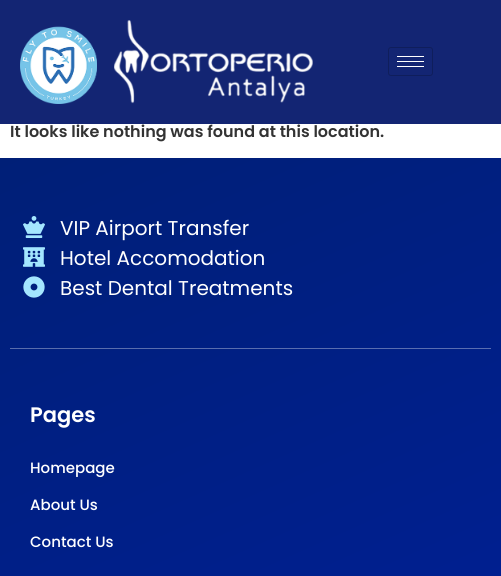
import math
import cairo

surface = cairo.ImageSurface(cairo.FORMAT_RGB24, 501, 576)
ctx = cairo.Context(surface)
options = cairo.FontOptions()
options.set_hint_metrics(cairo.HINT_METRICS_OFF)
options.set_hint_style(cairo.HINT_STYLE_NONE)
ctx.set_font_options(options)
ctx.set_miter_limit(4)


def round_rect(x, y, w, h, r):
    ctx.new_sub_path()
    for i, (u, v) in enumerate([(x + w - r, y + h - r), (x + r, y + h - r), (x + r, y + r), (x + w - r, y + r)]):
        ctx.arc(u, v, r, i * math.pi / 2, (i + 1) * math.pi / 2)
    ctx.close_path()


def picture(path, x, y, w, h):
    ctx.save()
    ctx.set_source_surface(cairo.ImageSurface.create_from_png(path), x, y)
    ctx.rectangle(x, y, w, h)
    ctx.fill()
    ctx.restore()


ctx.set_source_rgb(1, 1, 1)
ctx.paint()
ctx.set_source_rgb(0.075, 0.145, 0.451)
ctx.rectangle(0, 0, 501, 124)
ctx.fill()
picture("img1.png", 20, 20, 293, 84)
round_rect(388.5, 47.5, 44, 28, 2.5)
ctx.set_source_rgb(0.059, 0.118, 0.361)
ctx.set_line_width(1)
ctx.stroke()
ctx.set_source_rgb(1, 1, 1)
ctx.rectangle(397, 56, 27, 1)
ctx.fill()
ctx.rectangle(397, 61, 27, 1)
ctx.fill()
ctx.rectangle(397, 66, 27, 1)
ctx.fill()
ctx.select_font_face("Poppins SemiBold")
ctx.set_font_size(16)
ctx.set_source_rgb(0.2, 0.2, 0.2)
ctx.move_to(10, 137)
ctx.show_text("It looks like nothing was found at this location.")
gradient = cairo.LinearGradient(-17, 166, 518, 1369)
gradient.add_color_stop_rgba(0, 0, 0.122, 0.467, 1)
gradient.add_color_stop_rgba(1, 0, 0.122, 0.686, 1)
ctx.set_source(gradient)
ctx.rectangle(0, 158, 501, 418)
ctx.fill()
gradient = cairo.LinearGradient(-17, 166, 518, 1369)
gradient.add_color_stop_rgba(0, 0.349, 0.427, 0.655, 1)
gradient.add_color_stop_rgba(1, 0.349, 0.427, 0.796, 1)
ctx.set_source(gradient)
ctx.rectangle(10, 348, 481, 1)
ctx.fill()
picture("img2.png", 23, 216, 22, 22)
ctx.select_font_face("Poppins")
ctx.set_font_size(20)
ctx.set_source_rgb(1, 1, 1)
ctx.move_to(60, 235)
ctx.show_text("VIP Airport Transfer")
picture("img3.png", 23, 247, 22, 20)
ctx.move_to(60, 265)
ctx.show_text("Hotel Accomodation")
picture("img4.png", 23, 276, 22, 22)
ctx.move_to(60, 295)
ctx.show_text("Best Dental Treatments")
ctx.select_font_face("Poppins SemiBold")
ctx.set_font_size(21)
ctx.move_to(30, 422)
ctx.show_text("Pages")
ctx.select_font_face("Poppins Medium")
ctx.set_font_size(15)
ctx.move_to(30, 473)
ctx.show_text("Homepage")
ctx.move_to(30, 510)
ctx.show_text("About Us")
ctx.move_to(30, 547)
ctx.show_text("Contact Us")
surface.write_to_png("page.png")
